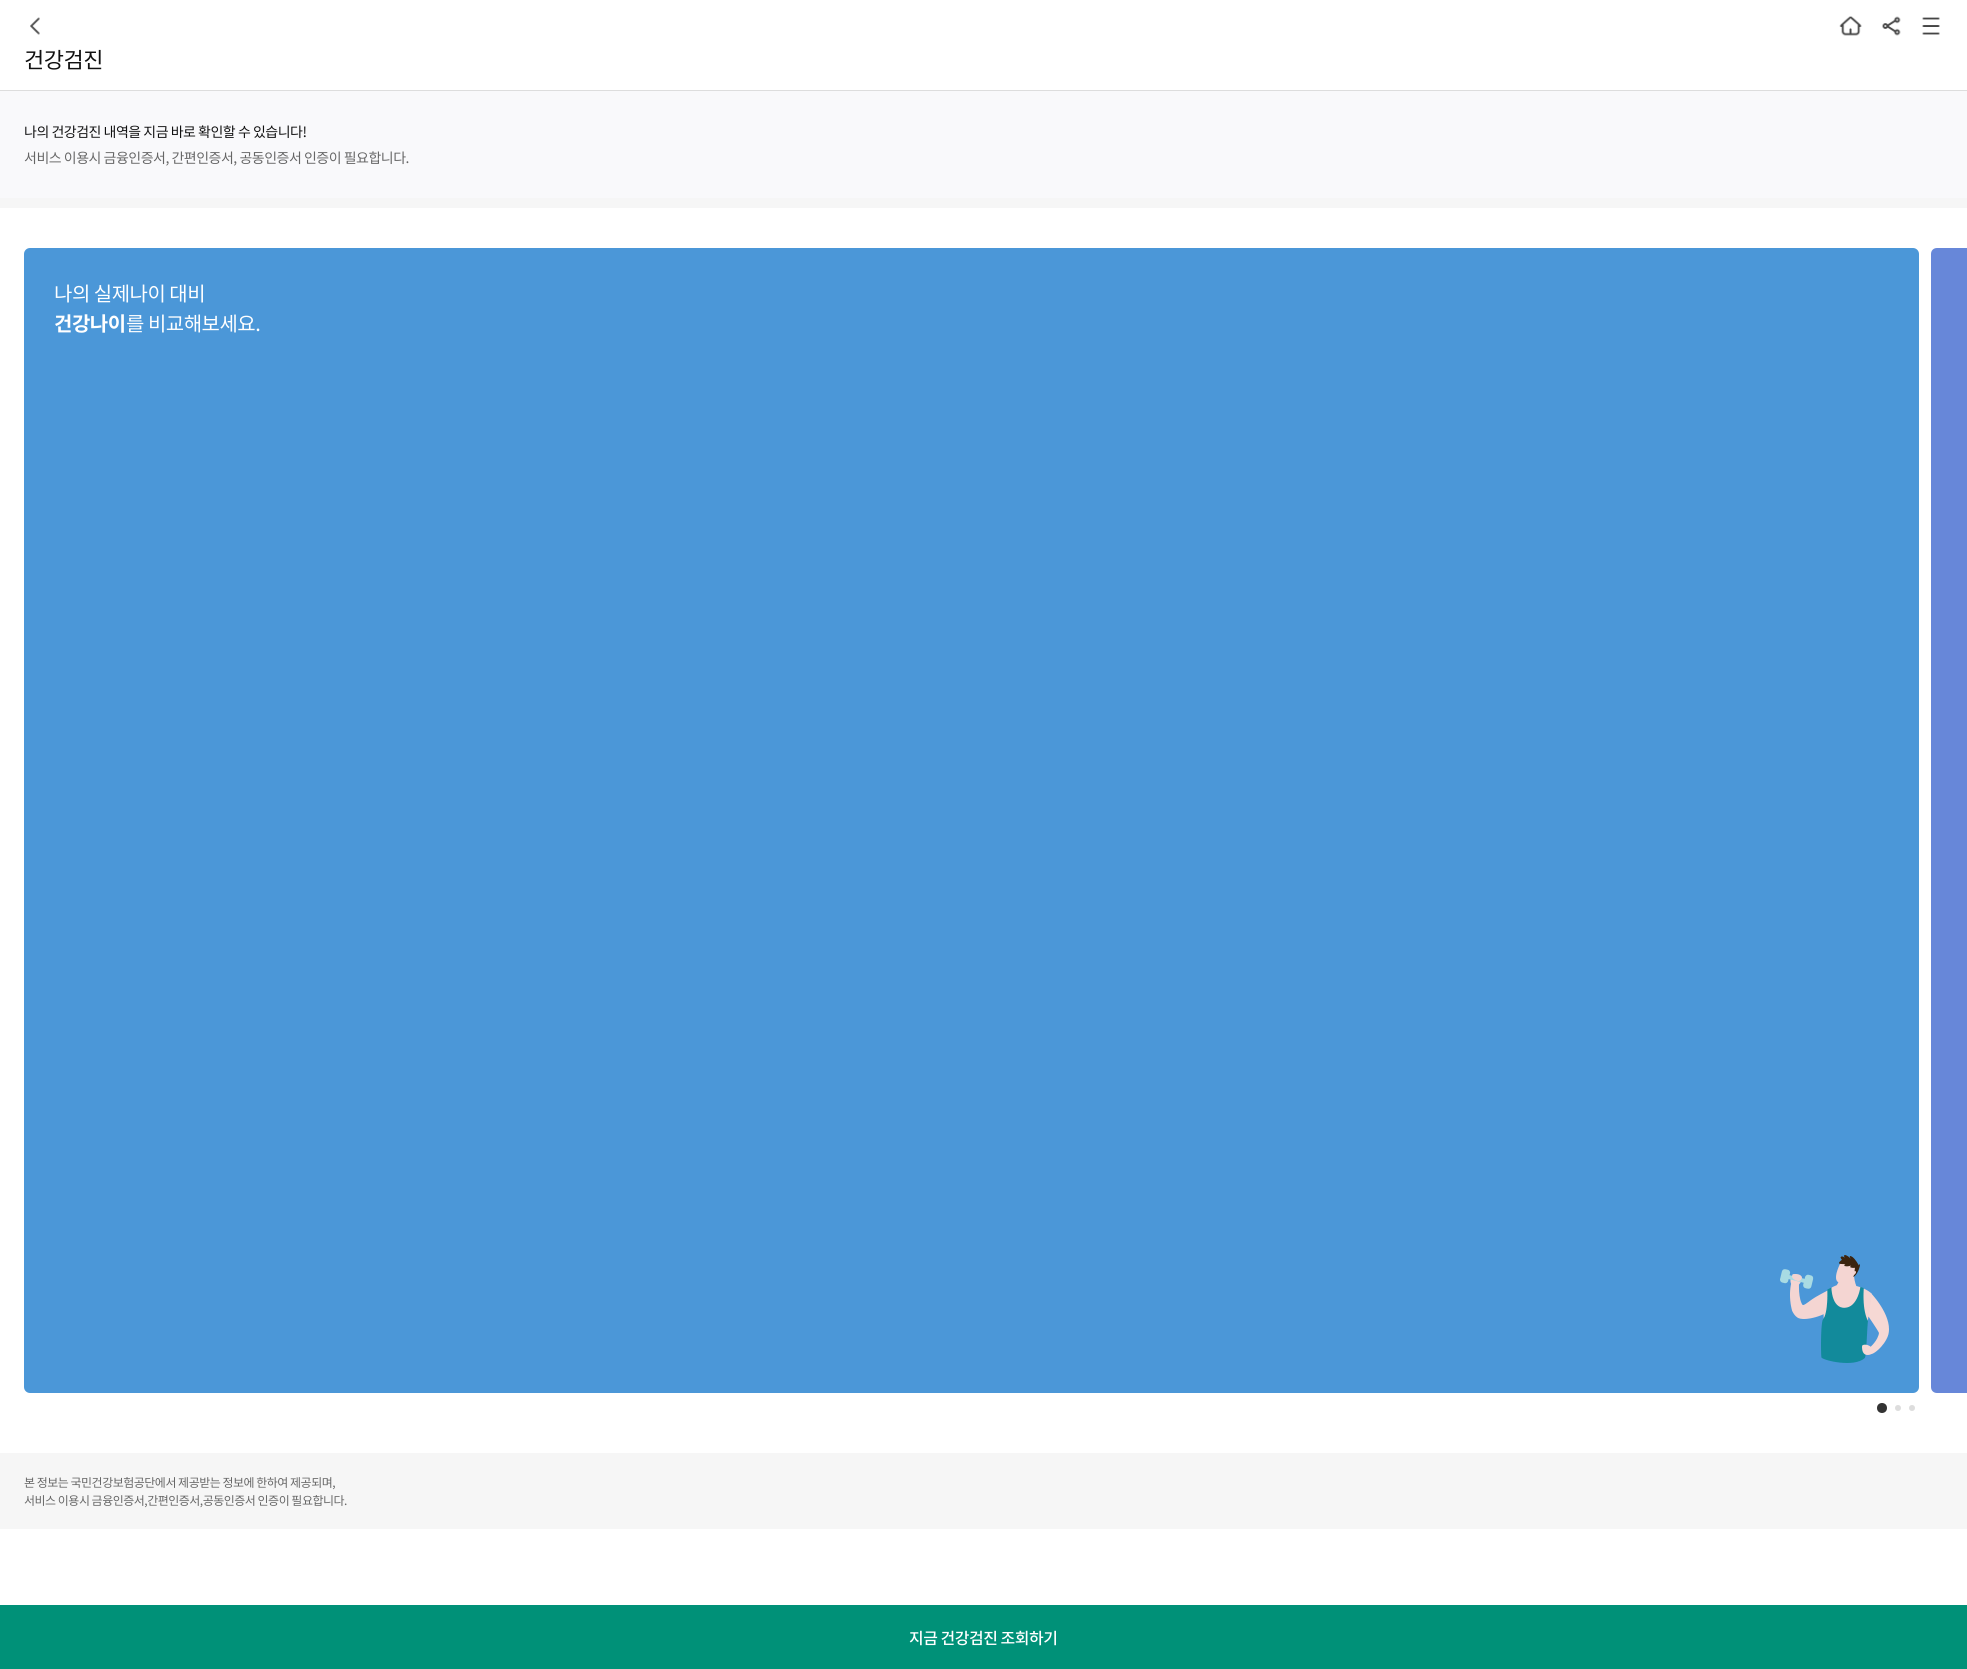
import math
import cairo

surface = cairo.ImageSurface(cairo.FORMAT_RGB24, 1967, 1669)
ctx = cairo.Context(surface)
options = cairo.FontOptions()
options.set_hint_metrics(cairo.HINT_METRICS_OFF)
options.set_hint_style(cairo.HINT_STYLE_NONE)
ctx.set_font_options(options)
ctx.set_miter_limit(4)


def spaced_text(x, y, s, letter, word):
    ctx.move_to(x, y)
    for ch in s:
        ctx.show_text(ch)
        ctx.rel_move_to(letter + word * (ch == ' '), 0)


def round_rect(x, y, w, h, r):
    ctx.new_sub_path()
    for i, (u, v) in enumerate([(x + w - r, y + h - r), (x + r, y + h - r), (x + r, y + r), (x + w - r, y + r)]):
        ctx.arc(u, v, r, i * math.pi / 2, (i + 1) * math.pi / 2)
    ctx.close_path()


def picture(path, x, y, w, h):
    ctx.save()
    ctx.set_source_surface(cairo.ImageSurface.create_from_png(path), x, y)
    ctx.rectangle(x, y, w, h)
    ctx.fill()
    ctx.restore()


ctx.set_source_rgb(1, 1, 1)
ctx.paint()
ctx.set_source_rgb(0.867, 0.867, 0.867)
ctx.rectangle(0, 90, 1967, 1)
ctx.fill()
picture("img1.png", 30, 17, 10, 18)
picture("img2.png", 1839, 16, 23, 20)
picture("img3.png", 1882, 16, 19, 20)
picture("img4.png", 1922, 17, 18, 18)
ctx.select_font_face("Noto Sans KR")
ctx.set_font_size(22)
ctx.set_source_rgb(0.067, 0.067, 0.067)
spaced_text(24, 68, "건강검진", -0.5, 0)
ctx.set_source_rgb(0.976, 0.976, 0.984)
ctx.rectangle(0, 91, 1967, 107)
ctx.fill()
ctx.set_source_rgb(0.961, 0.961, 0.961)
ctx.rectangle(0, 198, 1967, 10)
ctx.fill()
ctx.set_font_size(14)
ctx.set_source_rgb(0.067, 0.067, 0.067)
spaced_text(24, 137, "나의 건강검진 내역을 지금 바로 확인할 수 있습니다!", -0.5, 0)
ctx.set_source_rgb(0.4, 0.4, 0.4)
spaced_text(24, 163, "서비스 이용시 금융인증서, 간편인증서, 공동인증서 인증이 필요합니다.", -0.5, 0)
ctx.set_source_rgb(0.294, 0.592, 0.847)
round_rect(24, 248, 1895, 1145, 6)
ctx.fill()
picture("img5.png", 1780, 1255, 109, 108)
ctx.set_font_size(20)
ctx.set_source_rgb(1, 1, 1)
spaced_text(54, 301, "나의 실제나이 대비", -0.5, 0)
ctx.select_font_face("Noto Sans KR", cairo.FONT_SLANT_NORMAL, cairo.FONT_WEIGHT_BOLD)
spaced_text(54, 331, "건강나이", -0.5, 0)
ctx.select_font_face("Noto Sans KR")
spaced_text(126, 331, "를 비교해보세요.", -0.5, 0)
ctx.set_source_rgb(0.404, 0.529, 0.851)
ctx.new_path()
ctx.move_to(1937, 248)
ctx.line_to(1967, 248)
ctx.line_to(1967, 1393)
ctx.line_to(1937, 1393)
ctx.curve_to(1933.5, 1393, 1931, 1390.5, 1931, 1387)
ctx.line_to(1931, 254)
ctx.curve_to(1931, 250.5, 1933.5, 248, 1937, 248)
ctx.close_path()
ctx.fill()
ctx.set_source_rgb(0.2, 0.2, 0.2)
ctx.arc(1882, 1408, 5, 0, 2 * math.pi)
ctx.fill()
ctx.set_source_rgb(0.867, 0.867, 0.867)
ctx.arc(1898, 1408, 3, 0, 2 * math.pi)
ctx.fill()
ctx.arc(1912, 1408, 3, 0, 2 * math.pi)
ctx.fill()
ctx.set_source_rgb(0.961, 0.961, 0.961)
ctx.rectangle(0, 1453, 1967, 76)
ctx.fill()
ctx.set_font_size(12)
ctx.set_source_rgb(0.4, 0.4, 0.4)
spaced_text(24, 1487, "본 정보는 국민건강보험공단에서 제공받는 정보에 한하여 제공되며,", -0.5, 0)
spaced_text(24, 1505, "서비스 이용시 금융인증서,간편인증서,공동인증서 인증이 필요합니다.", -0.5, 0)
ctx.set_source_rgb(0, 0.569, 0.471)
ctx.rectangle(0, 1605, 1967, 64)
ctx.fill()
ctx.select_font_face("Noto Sans KR Medium")
ctx.set_font_size(16)
ctx.set_source_rgb(1, 1, 1)
spaced_text(909, 1644, "지금 건강검진 조회하기", -0.5, 0)
surface.write_to_png("page.png")
